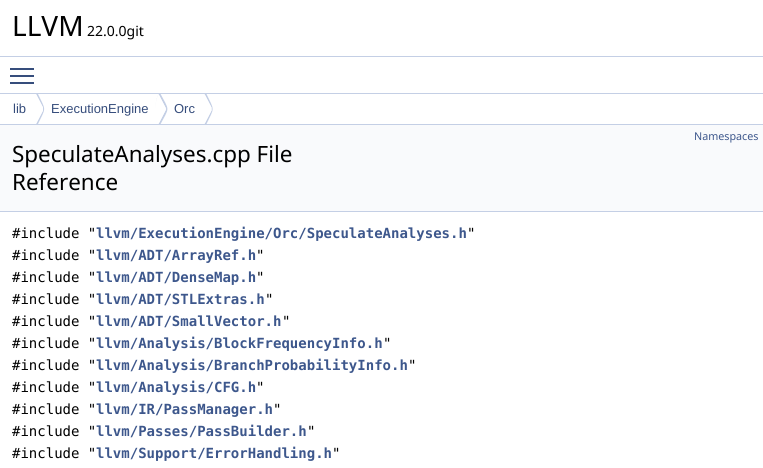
import math
import cairo

surface = cairo.ImageSurface(cairo.FORMAT_RGB24, 763, 468)
ctx = cairo.Context(surface)
options = cairo.FontOptions()
options.set_hint_metrics(cairo.HINT_METRICS_OFF)
options.set_hint_style(cairo.HINT_STYLE_NONE)
ctx.set_font_options(options)
ctx.set_miter_limit(4)


ctx.set_source_rgb(1, 1, 1)
ctx.paint()
ctx.set_source_rgb(0.769, 0.812, 0.898)
ctx.rectangle(0, 56, 763, 1)
ctx.fill()
ctx.select_font_face("Noto Sans")
ctx.set_font_size(28)
ctx.set_source_rgb(0, 0, 0)
ctx.move_to(12, 36)
ctx.show_text("LLVM")
ctx.set_font_size(14)
ctx.move_to(87, 36)
ctx.show_text("22.0.0git")
ctx.set_source_rgb(0.212, 0.302, 0.486)
ctx.rectangle(10, 75, 24, 2)
ctx.fill()
ctx.rectangle(10, 68, 24, 2)
ctx.fill()
ctx.rectangle(10, 82, 24, 2)
ctx.fill()
ctx.set_source_rgb(0.769, 0.812, 0.898)
ctx.rectangle(0, 93, 763, 1)
ctx.fill()
ctx.rectangle(0, 124, 763, 1)
ctx.fill()
ctx.select_font_face("Liberation Sans")
ctx.set_font_size(13)
ctx.set_source_rgb(0.208, 0.298, 0.482)
ctx.move_to(13, 113)
ctx.show_text("lib")
ctx.save()
ctx.rectangle(0, 94, 763, 30)
ctx.clip()
ctx.set_source_rgb(0.769, 0.812, 0.898)
ctx.new_path()
ctx.move_to(37, 92)
ctx.line_to(36, 94)
ctx.line_to(43, 107.5)
ctx.curve_to(43, 108.5, 43, 109.5, 43, 110.5)
ctx.line_to(36, 124)
ctx.line_to(37, 126)
ctx.curve_to(46.5, 106, 46.5, 112, 37, 92)
ctx.close_path()
ctx.fill()
ctx.restore()
ctx.set_source_rgb(1, 1, 1)
ctx.new_path()
ctx.move_to(36, 94)
ctx.line_to(43, 107.5)
ctx.curve_to(43, 108.5, 43, 109.5, 43, 110.5)
ctx.line_to(36, 124)
ctx.curve_to(32, 115.5, 32, 102.5, 36, 94)
ctx.close_path()
ctx.fill()
ctx.set_source_rgb(0.208, 0.298, 0.482)
ctx.move_to(51, 113)
ctx.show_text("ExecutionEngine")
ctx.save()
ctx.rectangle(0, 94, 763, 30)
ctx.clip()
ctx.set_source_rgb(0.769, 0.812, 0.898)
ctx.new_path()
ctx.move_to(159.5, 92)
ctx.curve_to(157, 97, 155.5, 102.5, 155.5, 108.5)
ctx.curve_to(155.5, 103, 156.5, 98, 158.5, 94)
ctx.line_to(165.5, 107.5)
ctx.curve_to(166, 108.5, 166, 109.5, 165.5, 110.5)
ctx.line_to(158.5, 124)
ctx.line_to(158.5, 123.5)
ctx.line_to(159.5, 126)
ctx.curve_to(170, 106, 170, 112, 159.5, 92)
ctx.close_path()
ctx.fill()
ctx.restore()
ctx.set_source_rgb(1, 1, 1)
ctx.new_path()
ctx.move_to(158.5, 94)
ctx.line_to(165.5, 107.5)
ctx.curve_to(166, 108.5, 166, 109.5, 165.5, 110.5)
ctx.line_to(158.5, 124)
ctx.curve_to(154.5, 115.5, 154.5, 102.5, 158.5, 94)
ctx.close_path()
ctx.fill()
ctx.set_source_rgb(0.208, 0.298, 0.482)
ctx.move_to(174, 113)
ctx.show_text("Orc")
ctx.save()
ctx.rectangle(0, 94, 763, 30)
ctx.clip()
ctx.set_source_rgb(0.769, 0.812, 0.898)
ctx.new_path()
ctx.move_to(205.5, 92)
ctx.line_to(204, 94.5)
ctx.line_to(204.5, 94)
ctx.line_to(211.5, 107.5)
ctx.curve_to(211.5, 108.5, 211.5, 109.5, 211.5, 110.5)
ctx.line_to(204.5, 124)
ctx.line_to(205.5, 126)
ctx.curve_to(215, 106, 215, 112, 205.5, 92)
ctx.close_path()
ctx.fill()
ctx.restore()
ctx.set_source_rgb(1, 1, 1)
ctx.new_path()
ctx.move_to(204.5, 94)
ctx.line_to(211.5, 107.5)
ctx.curve_to(211.5, 108.5, 211.5, 109.5, 211.5, 110.5)
ctx.line_to(204.5, 124)
ctx.curve_to(200.5, 115.5, 200.5, 102.5, 204.5, 94)
ctx.close_path()
ctx.fill()
ctx.set_source_rgb(0.976, 0.98, 0.988)
ctx.rectangle(0, 125, 763, 86)
ctx.fill()
ctx.set_source_rgb(0.769, 0.812, 0.898)
ctx.rectangle(0, 211, 763, 1)
ctx.fill()
ctx.select_font_face("Noto Sans")
ctx.set_font_size(10.75)
ctx.set_source_rgb(0.239, 0.341, 0.549)
ctx.move_to(694, 140)
ctx.show_text("Namespaces")
ctx.set_font_size(22.4)
ctx.set_source_rgb(0, 0, 0)
ctx.move_to(12, 162)
ctx.show_text("SpeculateAnalyses.cpp File")
ctx.move_to(12, 190)
ctx.show_text("Reference")
ctx.select_font_face("DejaVu Sans Mono")
ctx.set_font_size(14)
ctx.move_to(12, 238)
ctx.show_text("#include \"")
ctx.select_font_face("DejaVu Sans Mono", cairo.FONT_SLANT_NORMAL, cairo.FONT_WEIGHT_BOLD)
ctx.set_source_rgb(0.239, 0.341, 0.549)
ctx.move_to(96, 238)
ctx.show_text("llvm/ExecutionEngine/Orc/SpeculateAnalyses.h")
ctx.select_font_face("DejaVu Sans Mono")
ctx.set_source_rgb(0, 0, 0)
ctx.move_to(467, 238)
ctx.show_text("\"")
ctx.move_to(12, 260)
ctx.show_text("#include \"")
ctx.select_font_face("DejaVu Sans Mono", cairo.FONT_SLANT_NORMAL, cairo.FONT_WEIGHT_BOLD)
ctx.set_source_rgb(0.239, 0.341, 0.549)
ctx.move_to(96, 260)
ctx.show_text("llvm/ADT/ArrayRef.h")
ctx.select_font_face("DejaVu Sans Mono")
ctx.set_source_rgb(0, 0, 0)
ctx.move_to(256, 260)
ctx.show_text("\"")
ctx.move_to(12, 282)
ctx.show_text("#include \"")
ctx.select_font_face("DejaVu Sans Mono", cairo.FONT_SLANT_NORMAL, cairo.FONT_WEIGHT_BOLD)
ctx.set_source_rgb(0.239, 0.341, 0.549)
ctx.move_to(96, 282)
ctx.show_text("llvm/ADT/DenseMap.h")
ctx.select_font_face("DejaVu Sans Mono")
ctx.set_source_rgb(0, 0, 0)
ctx.move_to(256, 282)
ctx.show_text("\"")
ctx.move_to(12, 304)
ctx.show_text("#include \"")
ctx.select_font_face("DejaVu Sans Mono", cairo.FONT_SLANT_NORMAL, cairo.FONT_WEIGHT_BOLD)
ctx.set_source_rgb(0.239, 0.341, 0.549)
ctx.move_to(96, 304)
ctx.show_text("llvm/ADT/STLExtras.h")
ctx.select_font_face("DejaVu Sans Mono")
ctx.set_source_rgb(0, 0, 0)
ctx.move_to(265, 304)
ctx.show_text("\"")
ctx.move_to(12, 326)
ctx.show_text("#include \"")
ctx.select_font_face("DejaVu Sans Mono", cairo.FONT_SLANT_NORMAL, cairo.FONT_WEIGHT_BOLD)
ctx.set_source_rgb(0.239, 0.341, 0.549)
ctx.move_to(96, 326)
ctx.show_text("llvm/ADT/SmallVector.h")
ctx.select_font_face("DejaVu Sans Mono")
ctx.set_source_rgb(0, 0, 0)
ctx.move_to(282, 326)
ctx.show_text("\"")
ctx.move_to(12, 348)
ctx.show_text("#include \"")
ctx.select_font_face("DejaVu Sans Mono", cairo.FONT_SLANT_NORMAL, cairo.FONT_WEIGHT_BOLD)
ctx.set_source_rgb(0.239, 0.341, 0.549)
ctx.move_to(96, 348)
ctx.show_text("llvm/Analysis/BlockFrequencyInfo.h")
ctx.select_font_face("DejaVu Sans Mono")
ctx.set_source_rgb(0, 0, 0)
ctx.move_to(383, 348)
ctx.show_text("\"")
ctx.move_to(12, 370)
ctx.show_text("#include \"")
ctx.select_font_face("DejaVu Sans Mono", cairo.FONT_SLANT_NORMAL, cairo.FONT_WEIGHT_BOLD)
ctx.set_source_rgb(0.239, 0.341, 0.549)
ctx.move_to(96, 370)
ctx.show_text("llvm/Analysis/BranchProbabilityInfo.h")
ctx.select_font_face("DejaVu Sans Mono")
ctx.set_source_rgb(0, 0, 0)
ctx.move_to(408, 370)
ctx.show_text("\"")
ctx.move_to(12, 392)
ctx.show_text("#include \"")
ctx.select_font_face("DejaVu Sans Mono", cairo.FONT_SLANT_NORMAL, cairo.FONT_WEIGHT_BOLD)
ctx.set_source_rgb(0.239, 0.341, 0.549)
ctx.move_to(96, 392)
ctx.show_text("llvm/Analysis/CFG.h")
ctx.select_font_face("DejaVu Sans Mono")
ctx.set_source_rgb(0, 0, 0)
ctx.move_to(256, 392)
ctx.show_text("\"")
ctx.move_to(12, 414)
ctx.show_text("#include \"")
ctx.select_font_face("DejaVu Sans Mono", cairo.FONT_SLANT_NORMAL, cairo.FONT_WEIGHT_BOLD)
ctx.set_source_rgb(0.239, 0.341, 0.549)
ctx.move_to(96, 414)
ctx.show_text("llvm/IR/PassManager.h")
ctx.select_font_face("DejaVu Sans Mono")
ctx.set_source_rgb(0, 0, 0)
ctx.move_to(273, 414)
ctx.show_text("\"")
ctx.move_to(12, 436)
ctx.show_text("#include \"")
ctx.select_font_face("DejaVu Sans Mono", cairo.FONT_SLANT_NORMAL, cairo.FONT_WEIGHT_BOLD)
ctx.set_source_rgb(0.239, 0.341, 0.549)
ctx.move_to(96, 436)
ctx.show_text("llvm/Passes/PassBuilder.h")
ctx.select_font_face("DejaVu Sans Mono")
ctx.set_source_rgb(0, 0, 0)
ctx.move_to(307, 436)
ctx.show_text("\"")
ctx.move_to(12, 458)
ctx.show_text("#include \"")
ctx.select_font_face("DejaVu Sans Mono", cairo.FONT_SLANT_NORMAL, cairo.FONT_WEIGHT_BOLD)
ctx.set_source_rgb(0.239, 0.341, 0.549)
ctx.move_to(96, 458)
ctx.show_text("llvm/Support/ErrorHandling.h")
ctx.select_font_face("DejaVu Sans Mono")
ctx.set_source_rgb(0, 0, 0)
ctx.move_to(332, 458)
ctx.show_text("\"")
surface.write_to_png("page.png")
